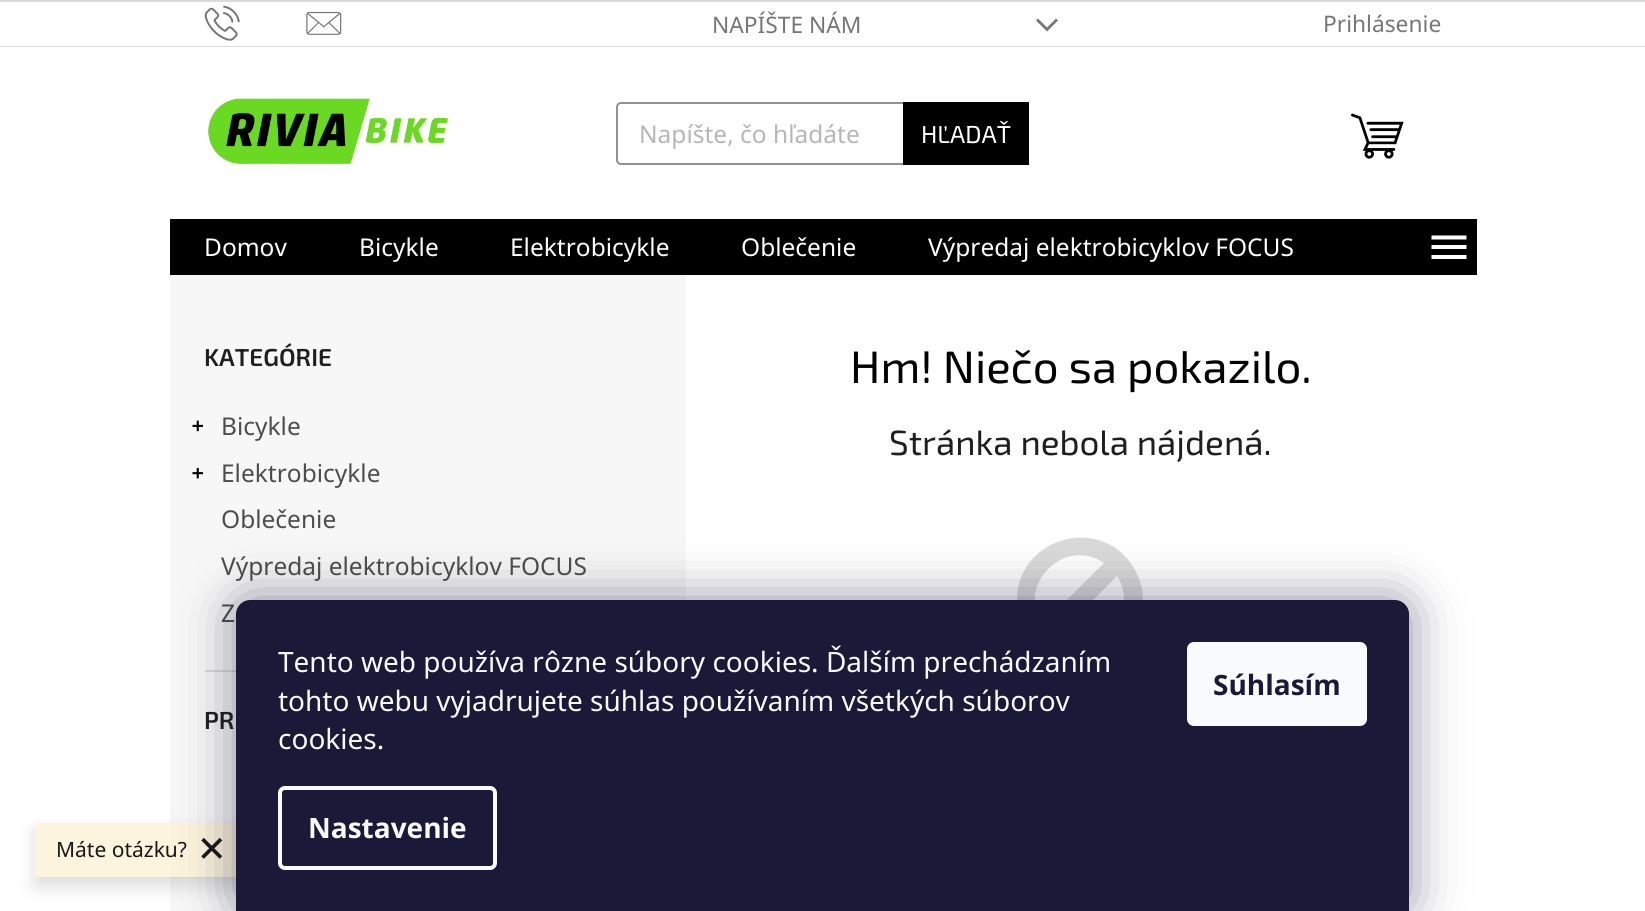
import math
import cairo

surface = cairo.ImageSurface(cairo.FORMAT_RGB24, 1645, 911)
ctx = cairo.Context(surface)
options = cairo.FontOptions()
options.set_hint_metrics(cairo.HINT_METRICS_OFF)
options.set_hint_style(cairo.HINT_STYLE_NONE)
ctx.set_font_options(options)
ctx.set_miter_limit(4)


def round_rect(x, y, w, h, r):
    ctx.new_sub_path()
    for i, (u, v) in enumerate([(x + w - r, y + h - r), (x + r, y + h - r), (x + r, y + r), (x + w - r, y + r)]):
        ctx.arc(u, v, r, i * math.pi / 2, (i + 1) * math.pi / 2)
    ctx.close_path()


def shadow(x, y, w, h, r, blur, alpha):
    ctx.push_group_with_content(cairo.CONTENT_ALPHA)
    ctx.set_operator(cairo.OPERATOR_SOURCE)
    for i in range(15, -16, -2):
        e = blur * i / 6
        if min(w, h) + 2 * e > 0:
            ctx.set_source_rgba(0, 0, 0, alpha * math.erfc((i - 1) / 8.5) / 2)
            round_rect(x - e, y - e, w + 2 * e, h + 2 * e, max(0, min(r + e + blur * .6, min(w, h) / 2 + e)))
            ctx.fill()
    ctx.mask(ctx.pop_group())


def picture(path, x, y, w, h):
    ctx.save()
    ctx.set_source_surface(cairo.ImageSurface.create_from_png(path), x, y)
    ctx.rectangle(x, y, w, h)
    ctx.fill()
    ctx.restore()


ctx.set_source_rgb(1, 1, 1)
ctx.paint()
ctx.set_source_rgb(0.855, 0.855, 0.855)
ctx.rectangle(0, 0, 1645, 2)
ctx.fill()
ctx.rectangle(0, 46, 1645, 1)
ctx.fill()
picture("img1.png", 204, 5, 36, 36)
picture("img2.png", 306, 11, 36, 24)
ctx.select_font_face("Noto Sans")
ctx.set_font_size(22.75)
ctx.set_source_rgb(0.463, 0.463, 0.463)
ctx.move_to(712, 33)
ctx.show_text("NAPÍŠTE NÁM")
ctx.new_path()
ctx.move_to(1036, 20.5)
ctx.line_to(1038, 18.5)
ctx.line_to(1047, 27.5)
ctx.line_to(1056, 18.5)
ctx.line_to(1058, 20.5)
ctx.line_to(1047, 31.5)
ctx.close_path()
ctx.fill()
ctx.move_to(1323, 32)
ctx.show_text("Prihlásenie")
picture("img3.png", 208, 98, 240, 66)
round_rect(617, 103, 411, 61, 4)
ctx.set_source_rgb(0.569, 0.569, 0.569)
ctx.stroke()
ctx.set_font_size(24.5)
ctx.set_source_rgb(0.714, 0.714, 0.714)
ctx.move_to(639, 143)
ctx.show_text("Napíšte, čo hľadáte")
ctx.set_source_rgb(0, 0, 0)
ctx.rectangle(903, 102, 126, 63)
ctx.fill()
ctx.select_font_face("Exo 2")
ctx.set_source_rgb(1, 1, 1)
ctx.move_to(921, 143)
ctx.show_text("HĽADAŤ")
picture("img4.png", 1351, 113, 53, 46)
ctx.set_source_rgb(0, 0, 0)
ctx.rectangle(170, 219, 1307, 56)
ctx.fill()
ctx.select_font_face("Noto Sans")
ctx.set_source_rgb(1, 1, 1)
ctx.move_to(204, 256)
ctx.show_text("Domov")
ctx.move_to(359, 256)
ctx.show_text("Bicykle")
ctx.move_to(510, 256)
ctx.show_text("Elektrobicykle")
ctx.move_to(741, 256)
ctx.show_text("Oblečenie")
ctx.move_to(928, 256)
ctx.show_text("Výpredaj elektrobicyklov FOCUS")
ctx.new_path()
ctx.move_to(1431.5, 259)
ctx.line_to(1466.5, 259)
ctx.line_to(1466.5, 255)
ctx.line_to(1431.5, 255)
ctx.close_path()
ctx.move_to(1431.5, 249)
ctx.line_to(1466.5, 249)
ctx.line_to(1466.5, 245)
ctx.line_to(1431.5, 245)
ctx.close_path()
ctx.move_to(1431.5, 235.5)
ctx.line_to(1431.5, 239.5)
ctx.line_to(1466.5, 239.5)
ctx.line_to(1466.5, 235.5)
ctx.close_path()
ctx.fill()
ctx.set_source_rgb(0.965, 0.965, 0.965)
ctx.rectangle(170, 275, 516, 636)
ctx.fill()
ctx.set_source_rgb(0.855, 0.855, 0.855)
ctx.rectangle(205, 670, 31, 2)
ctx.fill()
ctx.select_font_face("Exo 2 SemiBold")
ctx.set_source_rgb(0.122, 0.122, 0.122)
ctx.move_to(204, 366)
ctx.show_text("KATEGÓRIE")
picture("img5.png", 192, 420, 11, 12)
ctx.select_font_face("Noto Sans")
ctx.set_source_rgb(0.302, 0.302, 0.302)
ctx.move_to(221, 435)
ctx.show_text("Bicykle")
picture("img6.png", 192, 467, 11, 12)
ctx.move_to(221, 482)
ctx.show_text("Elektrobicykle")
ctx.move_to(221, 528)
ctx.show_text("Oblečenie")
ctx.move_to(221, 575)
ctx.show_text("Výpredaj elektrobicyklov FOCUS")
ctx.move_to(221, 622)
ctx.show_text("Z")
ctx.set_source_rgb(0.855, 0.855, 0.855)
ctx.rectangle(205, 870, 31, 2)
ctx.fill()
ctx.select_font_face("Exo 2 SemiBold")
ctx.set_source_rgb(0.122, 0.122, 0.122)
ctx.move_to(204, 729)
ctx.show_text("PR")
ctx.select_font_face("Exo 2")
ctx.set_font_size(45.5)
ctx.set_source_rgb(0, 0, 0)
ctx.move_to(850, 383)
ctx.show_text("Hm! Niečo sa pokazilo.")
ctx.set_font_size(35)
ctx.set_source_rgb(0.122, 0.122, 0.122)
ctx.move_to(889, 455)
ctx.show_text("Stránka nebola nájdená.")
ctx.set_source_rgb(0.855, 0.855, 0.855)
ctx.new_path()
ctx.move_to(1124, 600)
ctx.curve_to(1124, 592, 1122, 583, 1117, 576)
ctx.line_to(1055, 638)
ctx.curve_to(1085, 657, 1124, 636, 1124, 600)
ctx.close_path()
ctx.move_to(1042, 625)
ctx.line_to(1104, 563)
ctx.curve_to(1064, 536, 1016, 585, 1042, 625)
ctx.close_path()
ctx.move_to(1143, 600)
ctx.curve_to(1143, 613, 1139, 625, 1132, 636)
ctx.curve_to(1097, 688, 1017, 662, 1017, 600)
ctx.curve_to(1017, 539, 1098, 514, 1132, 565)
ctx.curve_to(1139, 576, 1143, 588, 1143, 600)
ctx.close_path()
ctx.fill()
ctx.save()
ctx.set_fill_rule(cairo.FILL_RULE_EVEN_ODD)
ctx.new_path()
ctx.move_to(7, 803)
ctx.line_to(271, 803)
ctx.line_to(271, 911)
ctx.line_to(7, 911)
ctx.close_path()
ctx.move_to(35, 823)
ctx.line_to(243, 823)
ctx.line_to(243, 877)
ctx.line_to(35, 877)
ctx.close_path()
ctx.clip()
ctx.set_source_rgb(0, 0, 0)
shadow(35, 831, 208, 55, 0, 9, 0.14)
ctx.restore()
ctx.set_source_rgba(0.992, 0.953, 0.855, 0.9)
ctx.rectangle(35, 823, 201, 54)
ctx.fill()
ctx.select_font_face("Noto Sans")
ctx.set_font_size(21)
ctx.set_source_rgb(0.098, 0.094, 0.086)
ctx.move_to(56, 857)
ctx.show_text("Máte otázku?")
picture("img7.png", 201, 837, 22, 22)
ctx.set_source_rgb(0.106, 0.098, 0.224)
shadow(236, 600, 1173, 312, 14, 26, 0.5)
ctx.set_source_rgb(0.102, 0.098, 0.216)
ctx.new_path()
ctx.move_to(250, 600)
ctx.line_to(1395, 600)
ctx.curve_to(1402.5, 600, 1409, 606.5, 1409, 614)
ctx.line_to(1409, 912)
ctx.line_to(236, 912)
ctx.line_to(236, 614)
ctx.curve_to(236, 606.5, 242.5, 600, 250, 600)
ctx.close_path()
ctx.fill()
ctx.set_font_size(28)
ctx.set_source_rgb(0.973, 0.98, 0.984)
ctx.move_to(278, 672)
ctx.show_text("Tento web používa rôzne súbory cookies. Ďalším prechádzaním")
ctx.move_to(278, 711)
ctx.show_text("tohto webu vyjadrujete súhlas používaním všetkých súborov")
ctx.move_to(278, 749)
ctx.show_text("cookies.")
round_rect(280, 788, 215, 80, 5)
ctx.set_line_width(4)
ctx.stroke()
ctx.select_font_face("Noto Sans", cairo.FONT_SLANT_NORMAL, cairo.FONT_WEIGHT_BOLD)
ctx.move_to(308, 838)
ctx.show_text("Nastavenie")
round_rect(1187, 642, 180, 84, 7)
ctx.fill()
ctx.set_source_rgb(0.102, 0.098, 0.216)
ctx.move_to(1213, 695)
ctx.show_text("Súhlasím")
surface.write_to_png("page.png")
